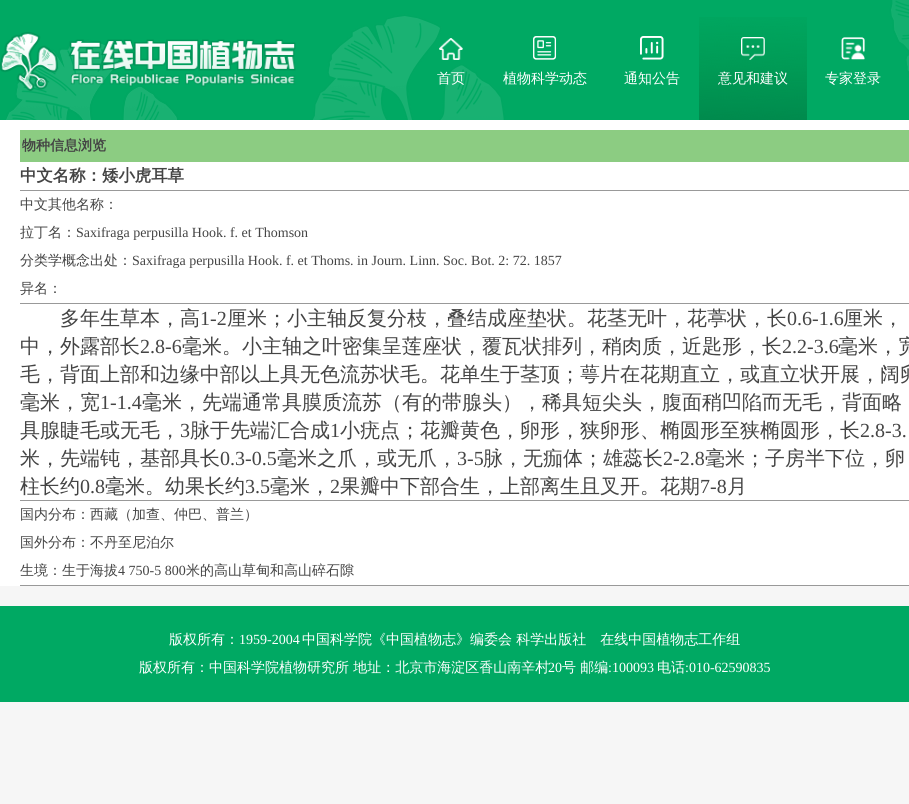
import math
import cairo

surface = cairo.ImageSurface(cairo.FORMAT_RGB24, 909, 804)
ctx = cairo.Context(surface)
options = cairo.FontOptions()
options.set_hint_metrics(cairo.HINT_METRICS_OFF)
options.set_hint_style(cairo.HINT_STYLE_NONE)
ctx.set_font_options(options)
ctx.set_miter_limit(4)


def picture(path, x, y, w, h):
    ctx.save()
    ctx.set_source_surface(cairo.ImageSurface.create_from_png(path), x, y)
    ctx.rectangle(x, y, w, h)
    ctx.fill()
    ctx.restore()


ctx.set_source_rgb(0.961, 0.961, 0.961)
ctx.paint()
ctx.set_source_rgb(0, 0.663, 0.388)
ctx.rectangle(0, 0, 909, 120)
ctx.fill()
picture("img1.png", 6, 0, 903, 120)
picture("img2.png", 0, 32, 296, 59)
picture("img3.png", 439, 38, 24, 22)
ctx.select_font_face("WenQuanYi Zen Hei Medium")
ctx.set_font_size(14)
ctx.set_source_rgb(1, 1, 1)
ctx.move_to(437, 83)
ctx.show_text("首页")
picture("img4.png", 533, 36, 24, 24)
ctx.move_to(503, 83)
ctx.show_text("植物科学动态")
picture("img5.png", 640, 36, 24, 24)
ctx.move_to(624, 83)
ctx.show_text("通知公告")
picture("img6.png", 699, 17, 108, 103)
picture("img7.png", 741, 37, 24, 23)
ctx.move_to(718, 83)
ctx.show_text("意见和建议")
picture("img8.png", 841, 37, 24, 23)
ctx.move_to(825, 83)
ctx.show_text("专家登录")
ctx.rectangle(0, 120, 909, 466)
ctx.fill()
ctx.set_source_rgb(0.549, 0.8, 0.51)
ctx.rectangle(20, 130, 889, 32)
ctx.fill()
ctx.select_font_face("WenQuanYi Zen Hei", cairo.FONT_SLANT_NORMAL, cairo.FONT_WEIGHT_BOLD)
ctx.set_source_rgb(0.267, 0.267, 0.267)
ctx.move_to(22, 150)
ctx.show_text("物种信息浏览")
ctx.set_font_size(16.4)
ctx.move_to(20, 181)
ctx.show_text("中文名称：矮小虎耳草")
ctx.set_source_rgb(0.6, 0.6, 0.6)
ctx.rectangle(20, 190, 889, 1)
ctx.fill()
ctx.select_font_face("WenQuanYi Zen Hei Medium")
ctx.set_font_size(14)
ctx.set_source_rgb(0.267, 0.267, 0.267)
ctx.move_to(20, 209)
ctx.show_text("中文其他名称：")
ctx.move_to(20, 237)
ctx.show_text("拉丁名：")
ctx.select_font_face("Liberation Serif")
ctx.move_to(76, 237)
ctx.show_text("Saxifraga perpusilla Hook. f. et Thomson")
ctx.select_font_face("WenQuanYi Zen Hei Medium")
ctx.move_to(20, 265)
ctx.show_text("分类学概念出处：")
ctx.select_font_face("Liberation Serif")
ctx.move_to(132, 265)
ctx.show_text("Saxifraga perpusilla Hook. f. et Thoms. in Journ. Linn. Soc. Bot. 2: 72. 1857")
ctx.select_font_face("WenQuanYi Zen Hei Medium")
ctx.move_to(20, 293)
ctx.show_text("异名：")
ctx.set_source_rgb(0.6, 0.6, 0.6)
ctx.rectangle(20, 303, 889, 1)
ctx.fill()
ctx.set_font_size(20)
ctx.set_source_rgb(0.267, 0.267, 0.267)
ctx.move_to(60, 325)
ctx.show_text("多年生草本，高")
ctx.select_font_face("Liberation Serif")
ctx.move_to(200, 325)
ctx.show_text("1-2")
ctx.select_font_face("WenQuanYi Zen Hei Medium")
ctx.move_to(227, 325)
ctx.show_text("厘米；小主轴反复分枝，叠结成座垫状。花茎无叶，花葶状，长")
ctx.select_font_face("Liberation Serif")
ctx.move_to(787, 325)
ctx.show_text("0.6-1.6")
ctx.select_font_face("WenQuanYi Zen Hei Medium")
ctx.move_to(843, 325)
ctx.show_text("厘米，")
ctx.move_to(20, 353)
ctx.show_text("中，外露部长")
ctx.select_font_face("Liberation Serif")
ctx.move_to(140, 353)
ctx.show_text("2.8-6")
ctx.select_font_face("WenQuanYi Zen Hei Medium")
ctx.move_to(182, 353)
ctx.show_text("毫米。小主轴之叶密集呈莲座状，覆瓦状排列，稍肉质，近匙形，长")
ctx.select_font_face("Liberation Serif")
ctx.move_to(782, 353)
ctx.show_text("2.2-3.6")
ctx.select_font_face("WenQuanYi Zen Hei Medium")
ctx.move_to(838, 353)
ctx.show_text("毫米，宽")
ctx.move_to(20, 381)
ctx.show_text("毛，背面上部和边缘中部以上具无色流苏状毛。花单生于茎顶；萼片在花期直立，或直立状开展，阔卵")
ctx.move_to(20, 409)
ctx.show_text("毫米，宽")
ctx.select_font_face("Liberation Serif")
ctx.move_to(100, 409)
ctx.show_text("1-1.4")
ctx.select_font_face("WenQuanYi Zen Hei Medium")
ctx.move_to(142, 409)
ctx.show_text("毫米，先端通常具膜质流苏（有的带腺头），稀具短尖头，腹面稍凹陷而无毛，背面略")
ctx.move_to(20, 437)
ctx.show_text("具腺睫毛或无毛，")
ctx.select_font_face("Liberation Serif")
ctx.move_to(180, 437)
ctx.show_text("3")
ctx.select_font_face("WenQuanYi Zen Hei Medium")
ctx.move_to(190, 437)
ctx.show_text("脉于先端汇合成")
ctx.select_font_face("Liberation Serif")
ctx.move_to(330, 437)
ctx.show_text("1")
ctx.select_font_face("WenQuanYi Zen Hei Medium")
ctx.move_to(340, 437)
ctx.show_text("小疣点；花瓣黄色，卵形，狭卵形、椭圆形至狭椭圆形，长")
ctx.select_font_face("Liberation Serif")
ctx.move_to(860, 437)
ctx.show_text("2.8-3.")
ctx.select_font_face("WenQuanYi Zen Hei Medium")
ctx.move_to(20, 465)
ctx.show_text("米，先端钝，基部具长")
ctx.select_font_face("Liberation Serif")
ctx.move_to(220, 465)
ctx.show_text("0.3-0.5")
ctx.select_font_face("WenQuanYi Zen Hei Medium")
ctx.move_to(277, 465)
ctx.show_text("毫米之爪，或无爪，")
ctx.select_font_face("Liberation Serif")
ctx.move_to(457, 465)
ctx.show_text("3-5")
ctx.select_font_face("WenQuanYi Zen Hei Medium")
ctx.move_to(483, 465)
ctx.show_text("脉，无痂体；雄蕊长")
ctx.select_font_face("Liberation Serif")
ctx.move_to(663, 465)
ctx.show_text("2-2.8")
ctx.select_font_face("WenQuanYi Zen Hei Medium")
ctx.move_to(705, 465)
ctx.show_text("毫米；子房半下位，卵")
ctx.move_to(20, 493)
ctx.show_text("柱长约")
ctx.select_font_face("Liberation Serif")
ctx.move_to(80, 493)
ctx.show_text("0.8")
ctx.select_font_face("WenQuanYi Zen Hei Medium")
ctx.move_to(105, 493)
ctx.show_text("毫米。幼果长约")
ctx.select_font_face("Liberation Serif")
ctx.move_to(245, 493)
ctx.show_text("3.5")
ctx.select_font_face("WenQuanYi Zen Hei Medium")
ctx.move_to(270, 493)
ctx.show_text("毫米，")
ctx.select_font_face("Liberation Serif")
ctx.move_to(330, 493)
ctx.show_text("2")
ctx.select_font_face("WenQuanYi Zen Hei Medium")
ctx.move_to(340, 493)
ctx.show_text("果瓣中下部合生，上部离生且叉开。花期")
ctx.select_font_face("Liberation Serif")
ctx.move_to(700, 493)
ctx.show_text("7-8")
ctx.select_font_face("WenQuanYi Zen Hei Medium")
ctx.move_to(727, 493)
ctx.show_text("月")
ctx.set_source_rgb(0.6, 0.6, 0.6)
ctx.rectangle(20, 500, 889, 1)
ctx.fill()
ctx.set_font_size(14)
ctx.set_source_rgb(0.267, 0.267, 0.267)
ctx.move_to(20, 519)
ctx.show_text("国内分布：西藏（加查、仲巴、普兰）")
ctx.move_to(20, 547)
ctx.show_text("国外分布：不丹至尼泊尔")
ctx.move_to(20, 575)
ctx.show_text("生境：生于海拔")
ctx.select_font_face("Liberation Serif")
ctx.move_to(118, 575)
ctx.show_text("4 750-5 800")
ctx.select_font_face("WenQuanYi Zen Hei Medium")
ctx.move_to(186, 575)
ctx.show_text("米的高山草甸和高山碎石隙")
ctx.set_source_rgb(0.6, 0.6, 0.6)
ctx.rectangle(20, 585, 889, 1)
ctx.fill()
ctx.set_source_rgb(0, 0.663, 0.388)
ctx.rectangle(0, 606, 909, 96)
ctx.fill()
ctx.set_source_rgb(1, 1, 1)
ctx.move_to(169, 644)
ctx.show_text("版权所有：")
ctx.select_font_face("Liberation Serif")
ctx.move_to(239, 644)
ctx.show_text("1959-2004")
ctx.select_font_face("WenQuanYi Zen Hei Medium")
ctx.move_to(302, 644)
ctx.show_text("中国科学院《中国植物志》编委会 科学出版社　在线中国植物志工作组")
ctx.move_to(139, 672)
ctx.show_text("版权所有：中国科学院植物研究所 地址：北京市海淀区香山南辛村")
ctx.select_font_face("Liberation Serif")
ctx.move_to(548, 672)
ctx.show_text("20")
ctx.select_font_face("WenQuanYi Zen Hei Medium")
ctx.move_to(562, 672)
ctx.show_text("号 邮编")
ctx.select_font_face("Liberation Serif")
ctx.move_to(608, 672)
ctx.show_text(":100093")
ctx.select_font_face("WenQuanYi Zen Hei Medium")
ctx.move_to(657, 672)
ctx.show_text("电话")
ctx.select_font_face("Liberation Serif")
ctx.move_to(685, 672)
ctx.show_text(":010-62590835")
surface.write_to_png("page.png")
